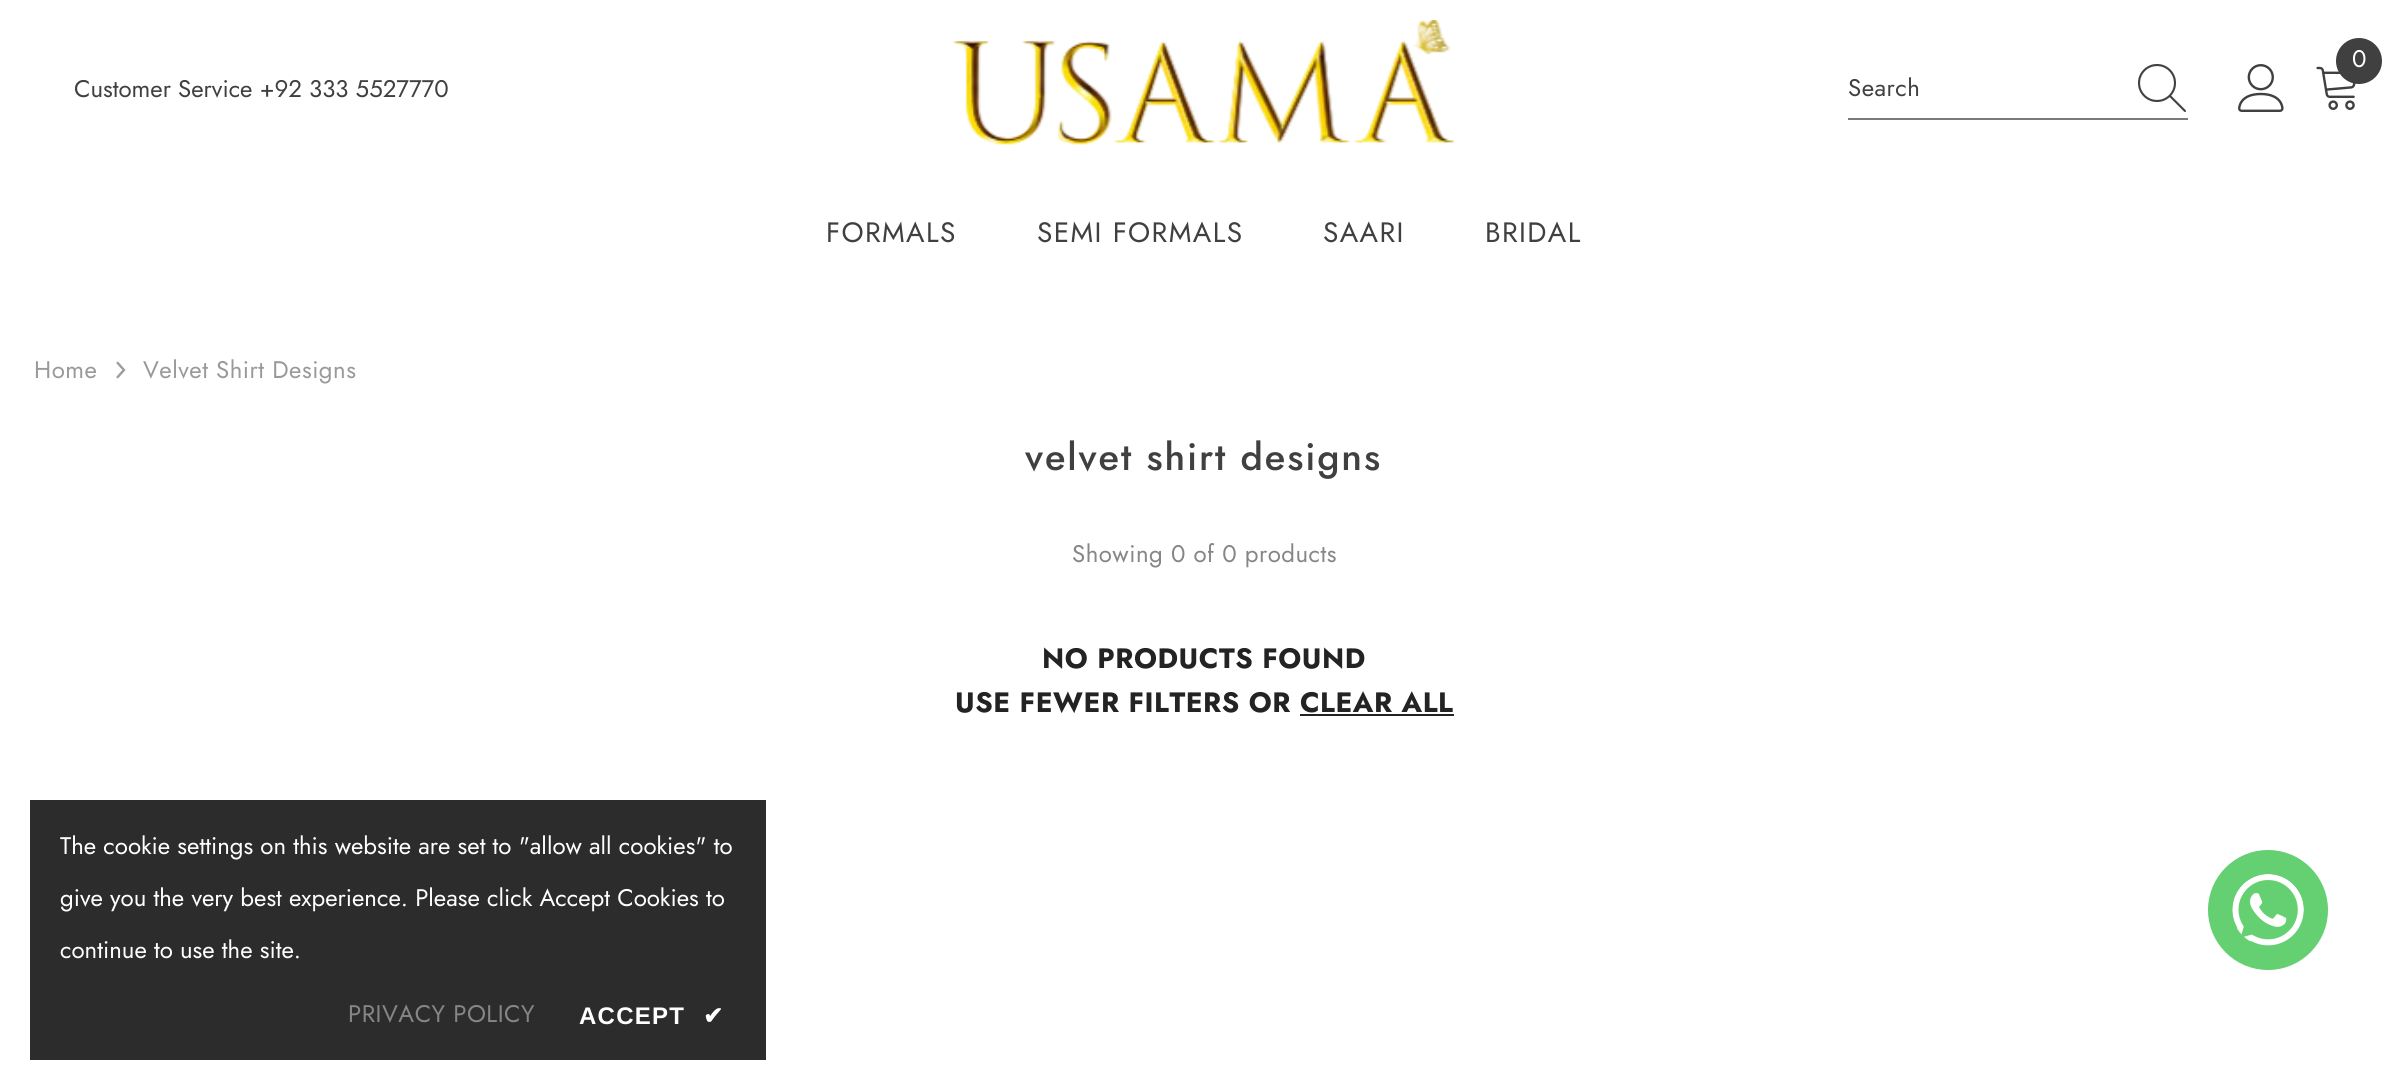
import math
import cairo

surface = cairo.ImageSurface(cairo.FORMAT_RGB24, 2408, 1090)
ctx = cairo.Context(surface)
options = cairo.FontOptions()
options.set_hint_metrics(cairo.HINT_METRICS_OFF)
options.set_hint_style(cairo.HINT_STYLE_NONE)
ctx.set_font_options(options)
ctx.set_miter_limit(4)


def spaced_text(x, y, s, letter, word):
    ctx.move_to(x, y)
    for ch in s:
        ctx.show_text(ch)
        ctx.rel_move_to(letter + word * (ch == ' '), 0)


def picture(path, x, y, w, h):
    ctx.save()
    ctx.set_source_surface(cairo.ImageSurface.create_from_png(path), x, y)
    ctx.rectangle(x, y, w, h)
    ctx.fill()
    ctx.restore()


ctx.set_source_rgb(1, 1, 1)
ctx.paint()
ctx.select_font_face("Jost")
ctx.set_font_size(24)
ctx.set_source_rgb(0.251, 0.251, 0.251)
ctx.move_to(74, 97)
ctx.show_text("Customer Service +92 333 5527770")
picture("img1.png", 953, 20, 501, 125)
picture("img2.png", 2316, 66, 40, 44)
ctx.arc(2359, 61, 23, 0, 2 * math.pi)
ctx.fill()
ctx.set_source_rgb(1, 1, 1)
ctx.move_to(2352, 67)
ctx.show_text("0")
picture("img3.png", 2238, 64, 46, 48)
ctx.set_source_rgb(0.482, 0.482, 0.482)
ctx.rectangle(1848, 118, 340, 2)
ctx.fill()
ctx.set_source_rgb(0.251, 0.251, 0.251)
spaced_text(1848, 96, "Search", 0.5, 0)
picture("img4.png", 2138, 64, 48, 48)
ctx.set_font_size(28)
spaced_text(826, 242, "FORMALS", 1.4, 0)
spaced_text(1037, 242, "SEMI FORMALS", 1.4, 0)
spaced_text(1323, 242, "SAARI", 1.4, 0)
spaced_text(1485, 242, "BRIDAL", 1.4, 0)
ctx.set_font_size(24)
ctx.set_source_rgb(0.6, 0.6, 0.6)
spaced_text(34, 378, "Home", 0.5, 0)
picture("img5.png", 116, 361, 10, 18)
spaced_text(143, 378, "Velvet Shirt Designs", 0.5, 0)
ctx.select_font_face("Jost Medium")
ctx.set_font_size(38)
ctx.set_source_rgb(0.251, 0.251, 0.251)
spaced_text(1025, 470, "velvet shirt designs", 1.9, 0)
ctx.select_font_face("Jost")
ctx.set_font_size(24)
ctx.set_source_rgb(0.525, 0.525, 0.525)
spaced_text(1072, 562, "Showing 0 of 0 products", 0.5, 0)
ctx.select_font_face("Jost", cairo.FONT_SLANT_NORMAL, cairo.FONT_WEIGHT_BOLD)
ctx.set_font_size(28)
ctx.set_source_rgb(0.137, 0.137, 0.137)
spaced_text(1042, 668, "NO PRODUCTS FOUND", 0.55, 0)
spaced_text(955, 712, "USE FEWER FILTERS OR CLEAR ALL", 0.55, 0)
ctx.rectangle(1300, 714, 154, 2)
ctx.fill()
ctx.set_source_rgb(0.173, 0.173, 0.173)
ctx.rectangle(30, 800, 736, 260)
ctx.fill()
ctx.select_font_face("Jost")
ctx.set_font_size(24)
ctx.set_source_rgb(1, 1, 1)
ctx.move_to(60, 854)
ctx.show_text("The cookie settings on this website are set to \"allow all cookies\" to")
ctx.move_to(60, 906)
ctx.show_text("give you the very best experience. Please click Accept Cookies to")
ctx.move_to(60, 958)
ctx.show_text("continue to use the site.")
ctx.set_source_rgb(0.525, 0.525, 0.525)
spaced_text(348, 1022, "PRIVACY POLICY", 0.5, 0)
ctx.select_font_face("Liberation Sans", cairo.FONT_SLANT_NORMAL, cairo.FONT_WEIGHT_BOLD)
ctx.set_source_rgb(1, 1, 1)
spaced_text(579, 1024, "ACCEPT", 1.25, 0)
ctx.select_font_face("DejaVu Sans", cairo.FONT_SLANT_NORMAL, cairo.FONT_WEIGHT_BOLD)
spaced_text(703, 1024, "✔", 1.25, 0)
ctx.set_source_rgb(0.396, 0.816, 0.443)
ctx.new_path()
ctx.arc(2268, 910, 60, 0, 2 * math.pi)
ctx.fill()
picture("img6.png", 2232, 874, 72, 72)
surface.write_to_png("page.png")
